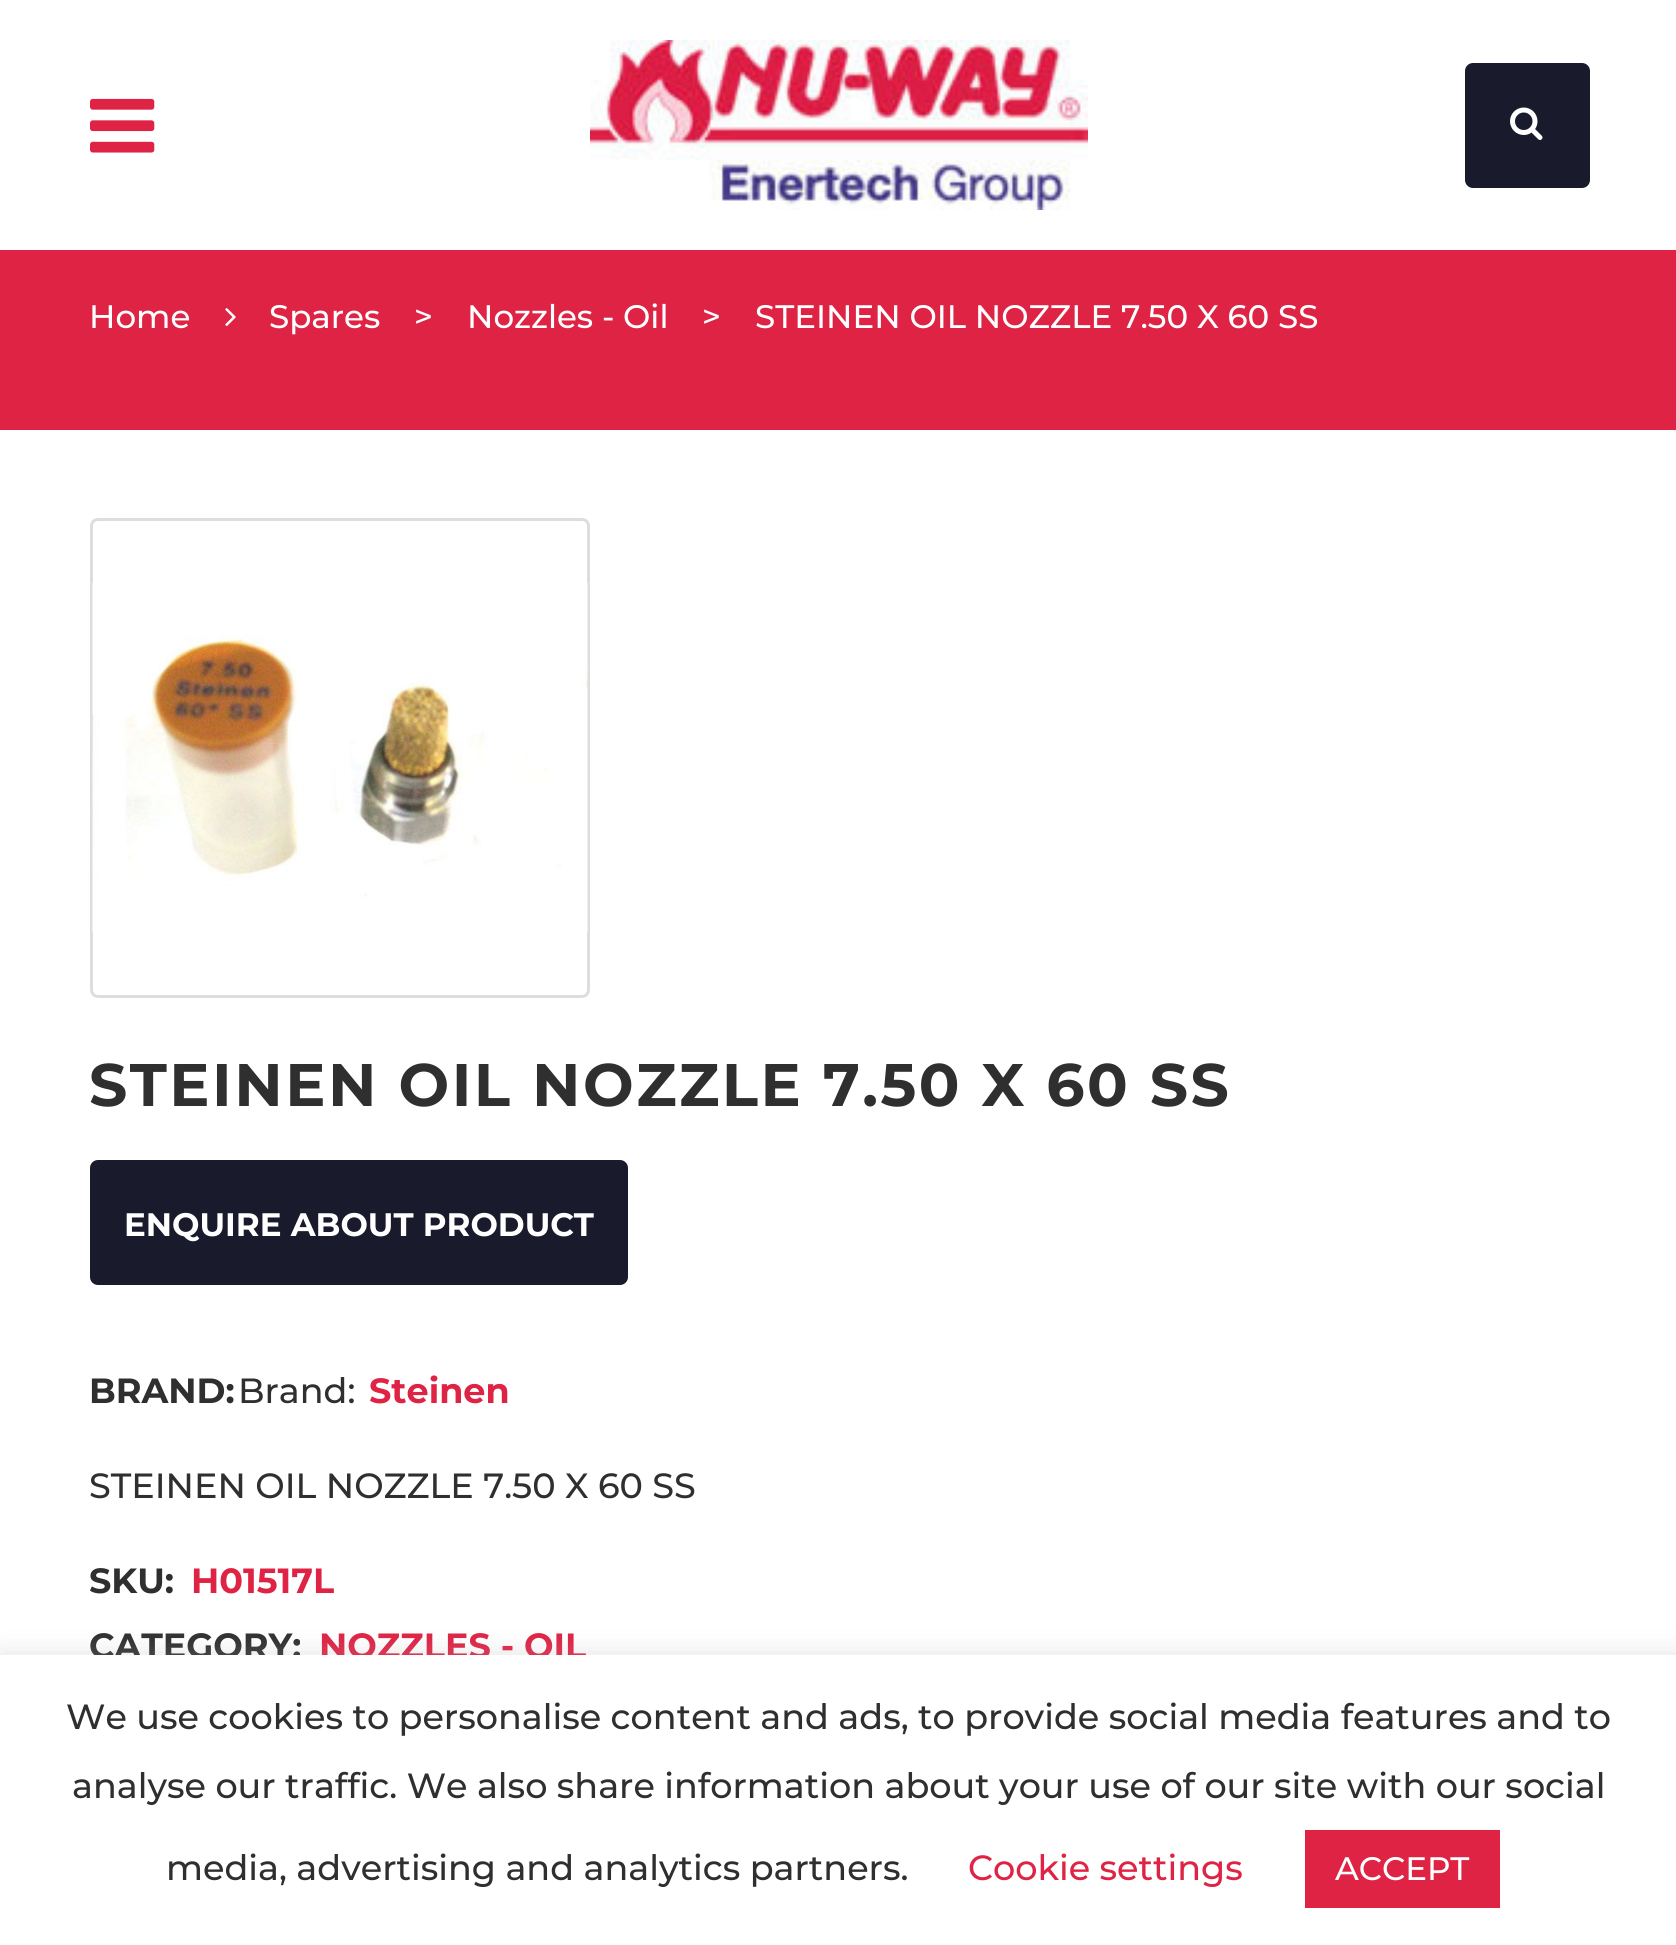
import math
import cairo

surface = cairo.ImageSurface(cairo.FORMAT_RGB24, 1676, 1945)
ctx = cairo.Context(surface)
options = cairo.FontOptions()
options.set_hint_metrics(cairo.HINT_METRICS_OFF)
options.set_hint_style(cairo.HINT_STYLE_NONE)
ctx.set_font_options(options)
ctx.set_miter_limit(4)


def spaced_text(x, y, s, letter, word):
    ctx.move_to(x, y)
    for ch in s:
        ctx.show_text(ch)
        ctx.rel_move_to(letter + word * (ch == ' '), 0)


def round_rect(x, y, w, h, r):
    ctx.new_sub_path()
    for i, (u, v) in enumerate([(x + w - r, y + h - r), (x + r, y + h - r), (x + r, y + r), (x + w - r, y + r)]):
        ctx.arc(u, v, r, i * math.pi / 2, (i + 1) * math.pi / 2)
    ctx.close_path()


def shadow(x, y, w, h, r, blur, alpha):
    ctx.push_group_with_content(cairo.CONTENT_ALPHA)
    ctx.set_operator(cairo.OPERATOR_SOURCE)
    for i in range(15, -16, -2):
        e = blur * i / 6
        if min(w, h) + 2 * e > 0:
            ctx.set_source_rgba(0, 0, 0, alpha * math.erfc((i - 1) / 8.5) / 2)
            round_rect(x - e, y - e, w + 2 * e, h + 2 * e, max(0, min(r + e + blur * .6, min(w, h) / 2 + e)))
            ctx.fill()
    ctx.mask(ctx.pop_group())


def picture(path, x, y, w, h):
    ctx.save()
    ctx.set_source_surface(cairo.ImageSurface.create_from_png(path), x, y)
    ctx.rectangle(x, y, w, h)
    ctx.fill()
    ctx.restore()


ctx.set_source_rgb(1, 1, 1)
ctx.paint()
picture("img1.png", 90, 98, 65, 55)
picture("img2.png", 590, 40, 498, 170)
ctx.set_source_rgb(0.098, 0.106, 0.173)
round_rect(1465, 63, 125, 125, 8)
ctx.fill()
picture("img3.png", 1510, 107, 33, 33)
ctx.set_source_rgb(0.875, 0.137, 0.267)
ctx.rectangle(0, 250, 1676, 180)
ctx.fill()
ctx.select_font_face("Montserrat Medium")
ctx.set_font_size(32.5)
ctx.set_source_rgb(1, 1, 1)
ctx.move_to(89, 328)
ctx.show_text("Home")
picture("img4.png", 225, 308, 11, 19)
ctx.move_to(269, 328)
ctx.show_text("Spares")
ctx.move_to(414, 328)
ctx.show_text(">")
ctx.move_to(467, 328)
ctx.show_text("Nozzles - Oil")
ctx.move_to(702, 328)
ctx.show_text(">")
ctx.move_to(755, 328)
ctx.show_text("STEINEN OIL NOZZLE 7.50 X 60 SS")
round_rect(91.5, 519.5, 497, 477, 6.5)
ctx.set_source_rgb(0.867, 0.867, 0.867)
ctx.set_line_width(3)
ctx.stroke()
picture("img5.png", 92, 582, 496, 351)
ctx.select_font_face("Montserrat", cairo.FONT_SLANT_NORMAL, cairo.FONT_WEIGHT_BOLD)
ctx.set_font_size(60)
ctx.set_source_rgb(0.184, 0.184, 0.184)
spaced_text(89, 1106, "STEINEN OIL NOZZLE 7.50 X 60 SS", 2.5, 0)
ctx.set_source_rgb(0.098, 0.106, 0.173)
round_rect(90, 1160, 538, 125, 8)
ctx.fill()
ctx.set_font_size(32.5)
ctx.set_source_rgb(1, 1, 1)
ctx.move_to(124, 1236)
ctx.show_text("ENQUIRE ABOUT PRODUCT")
ctx.set_font_size(35)
ctx.set_source_rgb(0.184, 0.184, 0.184)
ctx.move_to(89, 1403)
ctx.show_text("BRAND:")
ctx.select_font_face("Montserrat Medium")
ctx.move_to(238, 1403)
ctx.show_text("Brand:")
ctx.select_font_face("Montserrat", cairo.FONT_SLANT_NORMAL, cairo.FONT_WEIGHT_BOLD)
ctx.set_source_rgb(0.875, 0.137, 0.267)
ctx.move_to(369, 1403)
ctx.show_text("Steinen")
ctx.select_font_face("Montserrat Medium")
ctx.set_source_rgb(0.184, 0.184, 0.184)
ctx.move_to(89, 1498)
ctx.show_text("STEINEN OIL NOZZLE 7.50 X 60 SS")
ctx.select_font_face("Montserrat", cairo.FONT_SLANT_NORMAL, cairo.FONT_WEIGHT_BOLD)
ctx.move_to(89, 1593)
ctx.show_text("SKU:")
ctx.set_source_rgb(0.875, 0.137, 0.267)
ctx.move_to(191, 1593)
ctx.show_text("H01517L")
ctx.set_source_rgb(0.184, 0.184, 0.184)
ctx.move_to(89, 1658)
ctx.show_text("CATEGORY:")
ctx.set_source_rgb(0.875, 0.137, 0.267)
ctx.move_to(319, 1658)
ctx.show_text("NOZZLES - OIL")
ctx.set_source_rgb(0.675, 0.671, 0.671)
shadow(0, 1653, 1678, 290, 0, 12.5, 0.3)
ctx.set_source_rgb(1, 1, 1)
ctx.rectangle(0, 1655, 1676, 290)
ctx.fill()
ctx.select_font_face("Montserrat Medium")
ctx.set_source_rgb(0.184, 0.184, 0.184)
ctx.move_to(66, 1729)
ctx.show_text("We use cookies to personalise content and ads, to provide social media features and to")
ctx.move_to(72, 1798)
ctx.show_text("analyse our traffic. We also share information about your use of our site with our social")
ctx.move_to(166, 1880)
ctx.show_text("media, advertising and analytics partners.")
ctx.set_source_rgb(0.875, 0.137, 0.267)
ctx.move_to(968, 1880)
ctx.show_text("Cookie settings")
ctx.rectangle(1305, 1830, 195, 78)
ctx.fill()
ctx.set_font_size(32.5)
ctx.set_source_rgb(1, 1, 1)
ctx.move_to(1335, 1880)
ctx.show_text("ACCEPT")
surface.write_to_png("page.png")
